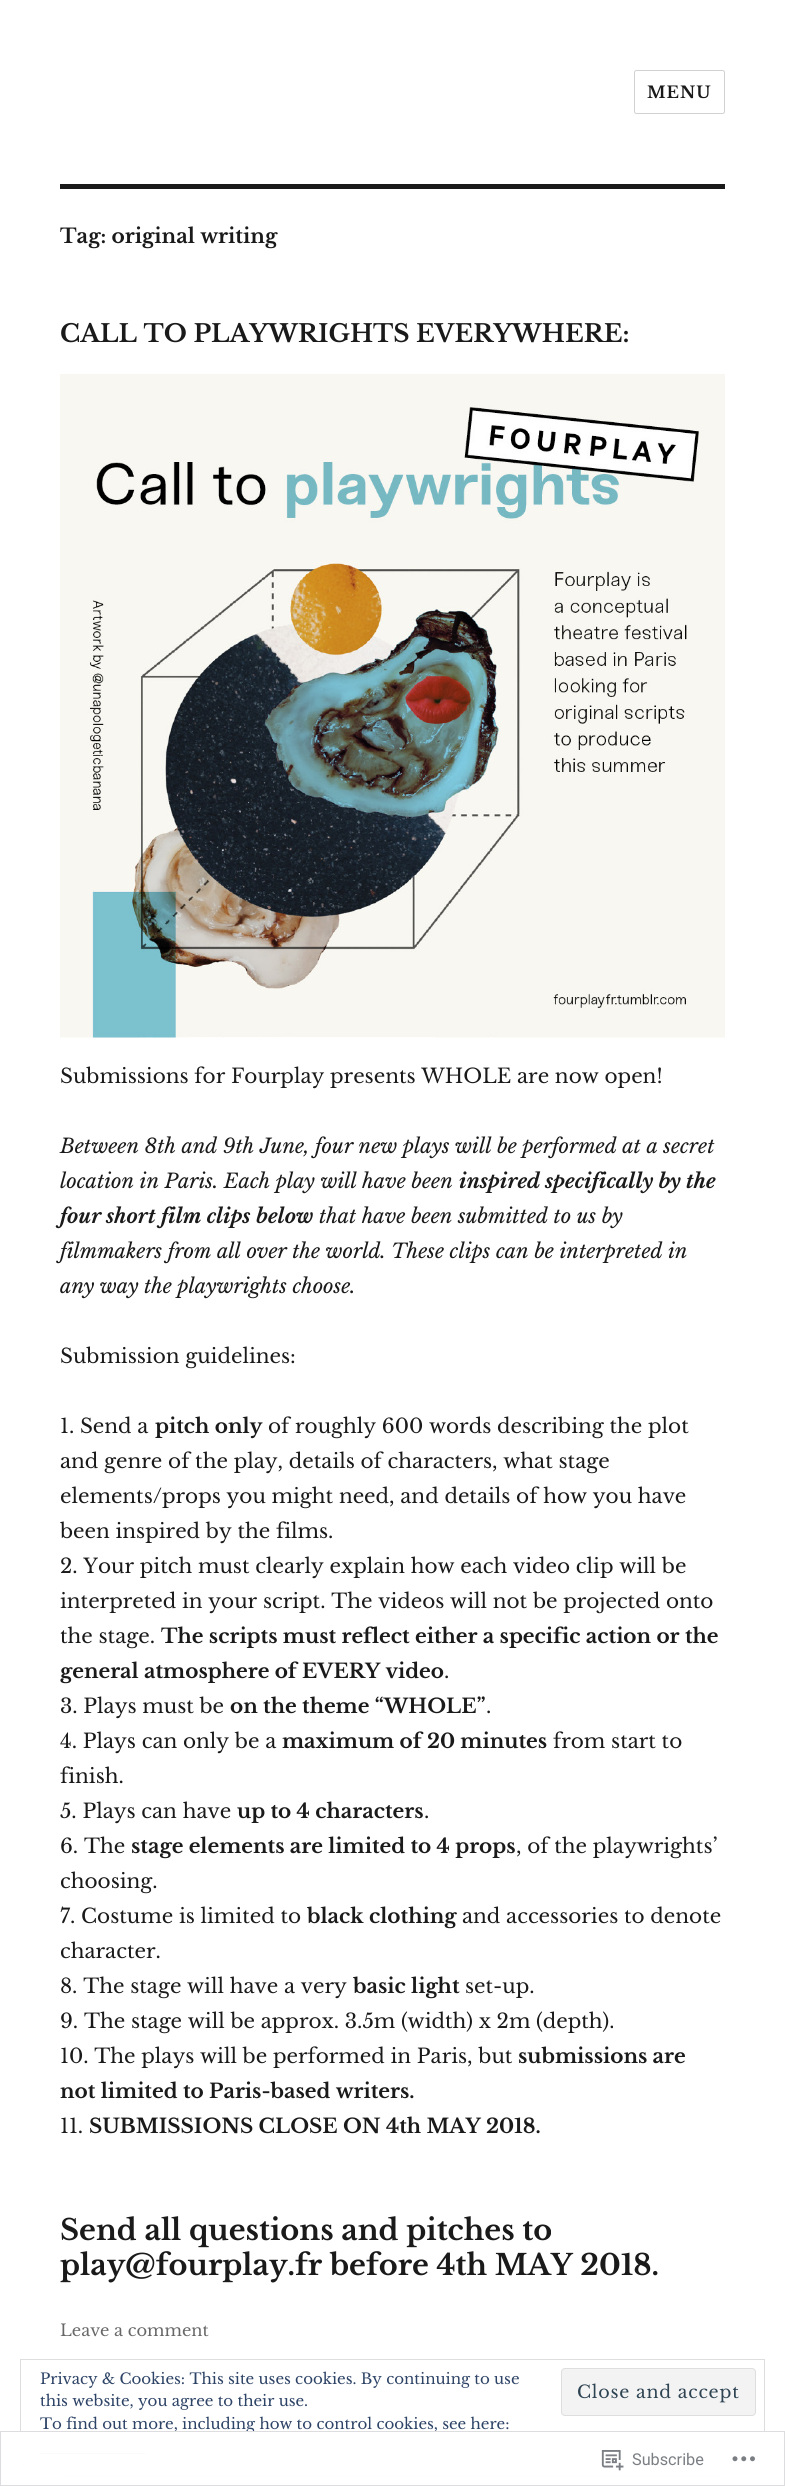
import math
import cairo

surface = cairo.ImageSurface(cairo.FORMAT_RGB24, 785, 2486)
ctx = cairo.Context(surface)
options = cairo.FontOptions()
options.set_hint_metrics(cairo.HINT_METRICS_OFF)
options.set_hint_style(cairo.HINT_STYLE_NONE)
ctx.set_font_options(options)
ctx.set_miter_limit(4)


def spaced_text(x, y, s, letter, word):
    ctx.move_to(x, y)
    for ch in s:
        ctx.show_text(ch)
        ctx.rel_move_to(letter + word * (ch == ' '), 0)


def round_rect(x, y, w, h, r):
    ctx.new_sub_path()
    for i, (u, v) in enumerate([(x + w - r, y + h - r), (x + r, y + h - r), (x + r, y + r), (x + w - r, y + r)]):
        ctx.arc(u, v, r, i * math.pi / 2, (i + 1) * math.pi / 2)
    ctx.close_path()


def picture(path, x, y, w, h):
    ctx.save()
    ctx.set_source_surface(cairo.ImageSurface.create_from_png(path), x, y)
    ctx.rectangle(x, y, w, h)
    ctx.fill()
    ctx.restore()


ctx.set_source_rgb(1, 1, 1)
ctx.paint()
round_rect(634.5, 70.5, 90, 43, 2)
ctx.set_source_rgb(0.82, 0.82, 0.82)
ctx.set_line_width(1)
ctx.stroke()
ctx.select_font_face("Libre Baskerville", cairo.FONT_SLANT_NORMAL, cairo.FONT_WEIGHT_BOLD)
ctx.set_font_size(16.25)
ctx.set_source_rgb(0.102, 0.102, 0.102)
spaced_text(647, 98, "MENU", 1, 0)
ctx.rectangle(60, 184, 665, 5)
ctx.fill()
ctx.set_font_size(20.1)
ctx.move_to(60, 243)
ctx.show_text("Tag: original writing")
ctx.set_font_size(24.5)
ctx.move_to(60, 342)
ctx.show_text("CALL TO PLAYWRIGHTS EVERYWHERE:")
picture("img1.png", 60, 374, 665, 664)
ctx.select_font_face("Libre Baskerville")
ctx.set_font_size(20)
ctx.move_to(60, 1083)
ctx.show_text("Submissions for Fourplay presents WHOLE are now open!")
ctx.select_font_face("Libre Baskerville", cairo.FONT_SLANT_ITALIC)
ctx.move_to(60, 1153)
ctx.show_text("Between 8th and 9th June, four new plays will be performed at a secret")
ctx.move_to(60, 1188)
ctx.show_text("location in Paris. Each play will have been")
ctx.select_font_face("Libre Baskerville", cairo.FONT_SLANT_ITALIC, cairo.FONT_WEIGHT_BOLD)
ctx.move_to(459, 1188)
ctx.show_text("inspired specifically by the")
ctx.move_to(60, 1223)
ctx.show_text("four short film clips")
ctx.move_to(256, 1223)
ctx.show_text("below")
ctx.select_font_face("Libre Baskerville", cairo.FONT_SLANT_ITALIC)
ctx.move_to(319, 1223)
ctx.show_text("that have been submitted to us by")
ctx.move_to(60, 1258)
ctx.show_text("filmmakers from all over the world. These clips can be interpreted in")
ctx.move_to(60, 1293)
ctx.show_text("any way the playwrights choose.")
ctx.select_font_face("Libre Baskerville")
ctx.move_to(60, 1363)
ctx.show_text("Submission guidelines:")
ctx.move_to(60, 1433)
ctx.show_text("1. Send a")
ctx.select_font_face("Libre Baskerville", cairo.FONT_SLANT_NORMAL, cairo.FONT_WEIGHT_BOLD)
ctx.move_to(155, 1433)
ctx.show_text("pitch only")
ctx.select_font_face("Libre Baskerville")
ctx.move_to(268, 1433)
ctx.show_text("of roughly 600 words describing the plot")
ctx.move_to(60, 1468)
ctx.show_text("and genre of the play, details of characters, what stage")
ctx.move_to(60, 1503)
ctx.show_text("elements/props you might need, and details of how you have")
ctx.move_to(60, 1538)
ctx.show_text("been inspired by the films.")
ctx.move_to(60, 1573)
ctx.show_text("2. Your pitch must clearly explain how each video clip will be")
ctx.move_to(60, 1608)
ctx.show_text("interpreted in your script. The videos will not be projected onto")
ctx.move_to(60, 1643)
ctx.show_text("the stage.")
ctx.select_font_face("Libre Baskerville", cairo.FONT_SLANT_NORMAL, cairo.FONT_WEIGHT_BOLD)
ctx.move_to(161, 1643)
ctx.show_text("The scripts must reflect either a specific action or the")
ctx.move_to(60, 1678)
ctx.show_text("general atmosphere of EVERY video")
ctx.select_font_face("Libre Baskerville")
ctx.move_to(444, 1678)
ctx.show_text(".")
ctx.move_to(60, 1713)
ctx.show_text("3. Plays must be")
ctx.select_font_face("Libre Baskerville", cairo.FONT_SLANT_NORMAL, cairo.FONT_WEIGHT_BOLD)
ctx.move_to(230, 1713)
ctx.show_text("on the theme “WHOLE”")
ctx.select_font_face("Libre Baskerville")
ctx.move_to(486, 1713)
ctx.show_text(".")
ctx.move_to(60, 1748)
ctx.show_text("4. Plays can only be a")
ctx.select_font_face("Libre Baskerville", cairo.FONT_SLANT_NORMAL, cairo.FONT_WEIGHT_BOLD)
ctx.move_to(282, 1748)
ctx.show_text("maximum of 20 minutes")
ctx.select_font_face("Libre Baskerville")
ctx.move_to(553, 1748)
ctx.show_text("from start to")
ctx.move_to(60, 1783)
ctx.show_text("finish.")
ctx.move_to(60, 1818)
ctx.show_text("5. Plays can have")
ctx.select_font_face("Libre Baskerville", cairo.FONT_SLANT_NORMAL, cairo.FONT_WEIGHT_BOLD)
ctx.move_to(237, 1818)
ctx.show_text("up to 4 characters")
ctx.select_font_face("Libre Baskerville")
ctx.move_to(424, 1818)
ctx.show_text(".")
ctx.move_to(60, 1853)
ctx.show_text("6. The")
ctx.select_font_face("Libre Baskerville", cairo.FONT_SLANT_NORMAL, cairo.FONT_WEIGHT_BOLD)
ctx.move_to(131, 1853)
ctx.show_text("stage elements are limited to 4 props")
ctx.select_font_face("Libre Baskerville")
ctx.move_to(516, 1853)
ctx.show_text(", of the playwrights’")
ctx.move_to(60, 1888)
ctx.show_text("choosing.")
ctx.move_to(60, 1923)
ctx.show_text("7. Costume is limited to")
ctx.select_font_face("Libre Baskerville", cairo.FONT_SLANT_NORMAL, cairo.FONT_WEIGHT_BOLD)
ctx.move_to(307, 1923)
ctx.show_text("black clothing")
ctx.select_font_face("Libre Baskerville")
ctx.move_to(462, 1923)
ctx.show_text("and accessories to denote")
ctx.move_to(60, 1958)
ctx.show_text("character.")
ctx.move_to(60, 1993)
ctx.show_text("8. The stage will have a very")
ctx.select_font_face("Libre Baskerville", cairo.FONT_SLANT_NORMAL, cairo.FONT_WEIGHT_BOLD)
ctx.move_to(353, 1993)
ctx.show_text("basic light")
ctx.select_font_face("Libre Baskerville")
ctx.move_to(465, 1993)
ctx.show_text("set-up.")
ctx.move_to(60, 2028)
ctx.show_text("9. The stage will be approx. 3.5m (width) x 2m (depth).")
ctx.move_to(60, 2063)
ctx.show_text("10. The plays will be performed in Paris, but")
ctx.select_font_face("Libre Baskerville", cairo.FONT_SLANT_NORMAL, cairo.FONT_WEIGHT_BOLD)
ctx.move_to(518, 2063)
ctx.show_text("submissions are")
ctx.move_to(60, 2098)
ctx.show_text("not limited to Paris-based writers.")
ctx.select_font_face("Libre Baskerville")
ctx.move_to(60, 2133)
ctx.show_text("11.")
ctx.select_font_face("Libre Baskerville", cairo.FONT_SLANT_NORMAL, cairo.FONT_WEIGHT_BOLD)
ctx.move_to(89, 2133)
ctx.show_text("SUBMISSIONS CLOSE ON 4th MAY 2018.")
ctx.set_font_size(28.75)
ctx.move_to(60, 2240)
ctx.show_text("Send all questions and pitches to")
ctx.move_to(60, 2275)
ctx.show_text("play@fourplay.fr before 4th MAY 2018.")
ctx.select_font_face("Libre Baskerville")
ctx.set_font_size(16.25)
ctx.set_source_rgb(0.408, 0.408, 0.408)
ctx.move_to(60, 2336)
ctx.show_text("Leave a comment")
ctx.set_source_rgb(0.82, 0.82, 0.82)
ctx.rectangle(60, 2475, 665, 1)
ctx.fill()
ctx.rectangle(20.5, 2359.5, 744, 106)
ctx.set_source_rgb(0.871, 0.871, 0.871)
ctx.stroke()
ctx.set_font_size(15)
ctx.set_source_rgb(0.18, 0.267, 0.404)
ctx.move_to(40, 2384)
ctx.show_text("Privacy & Cookies: This site uses cookies. By continuing to use")
ctx.move_to(40, 2406)
ctx.show_text("this website, you agree to their use.")
ctx.set_source_rgb(0.953, 0.953, 0.953)
round_rect(561.5, 2368.5, 194, 47, 3.5)
ctx.fill_preserve()
ctx.set_source_rgb(0.871, 0.871, 0.871)
ctx.stroke()
ctx.set_font_size(17.5)
ctx.set_source_rgb(0.18, 0.267, 0.325)
spaced_text(577, 2398, "Close and accept", 0.8, 0)
ctx.set_font_size(15)
ctx.set_source_rgb(0.18, 0.267, 0.404)
ctx.move_to(40, 2429)
ctx.show_text("To find out more, including how to control cookies, see here:")
ctx.rectangle(40, 2453, 106, 1)
ctx.fill()
ctx.set_source_rgba(1, 1, 1, 0.98)
ctx.rectangle(20, 2431, 745, 45)
ctx.fill()
ctx.rectangle(0.5, 2431.5, 784, 54)
ctx.set_source_rgba(0.863, 0.863, 0.871, 0.98)
ctx.stroke()
picture("img2.png", 601, 2450, 23, 21)
ctx.select_font_face("Roboto")
ctx.set_font_size(16.25)
ctx.set_source_rgb(0.482, 0.498, 0.518)
ctx.move_to(632, 2465)
ctx.show_text("Subscribe")
picture("img3.png", 732, 2456, 23, 6)
surface.write_to_png("page.png")
